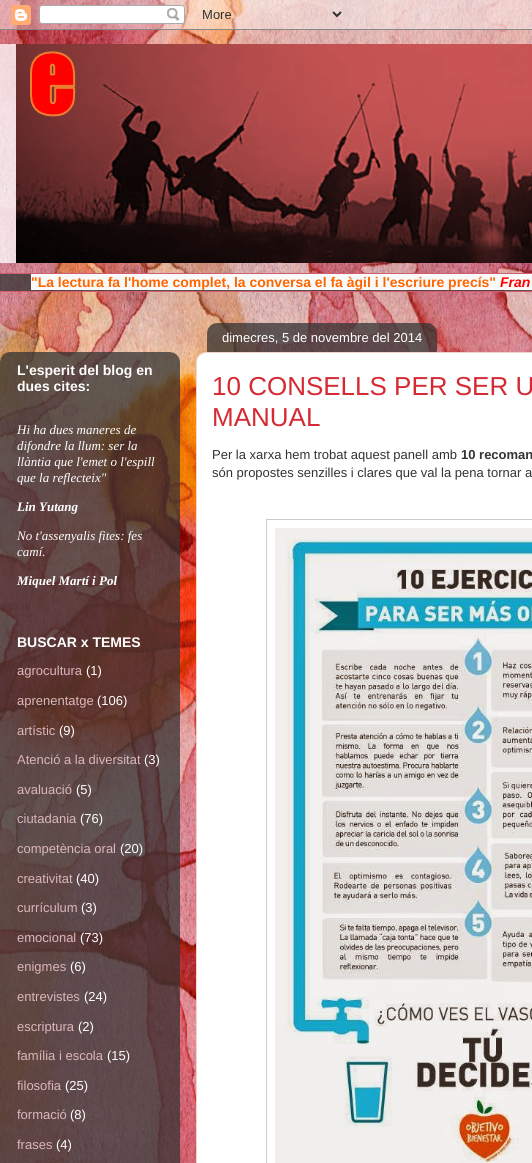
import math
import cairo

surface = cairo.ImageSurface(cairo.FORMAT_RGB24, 532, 1163)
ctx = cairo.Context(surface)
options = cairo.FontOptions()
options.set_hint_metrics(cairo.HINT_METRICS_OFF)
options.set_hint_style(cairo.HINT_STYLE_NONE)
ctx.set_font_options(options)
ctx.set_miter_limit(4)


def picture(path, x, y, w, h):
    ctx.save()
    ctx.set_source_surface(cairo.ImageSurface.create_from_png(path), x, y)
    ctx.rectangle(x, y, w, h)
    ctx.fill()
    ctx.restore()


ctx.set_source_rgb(1, 1, 1)
ctx.paint()
picture("img1.png", 0, 0, 532, 1163)
picture("img2.png", 0, 0, 532, 30)
ctx.set_source_rgba(1, 1, 1, 0.75)
ctx.rectangle(0, 44, 16, 219)
ctx.fill()
picture("img3.png", 16, 44, 516, 219)
ctx.set_source_rgba(0.2, 0.2, 0.2, 0.75)
ctx.rectangle(0, 274, 532, 17)
ctx.fill()
ctx.set_source_rgb(0.808, 0.373, 0.439)
ctx.rectangle(0, 273, 532, 1)
ctx.fill()
ctx.set_source_rgb(0.98, 0.98, 0.98)
ctx.rectangle(31, 274, 501, 16)
ctx.fill()
ctx.select_font_face("Liberation Sans", cairo.FONT_SLANT_NORMAL, cairo.FONT_WEIGHT_BOLD)
ctx.set_font_size(14)
ctx.set_source_rgb(1, 0.4, 0)
ctx.move_to(31, 287)
ctx.show_text("\"La lectura fa l'home complet, la conversa el fa àgil i l'escriure precís\"")
ctx.select_font_face("Liberation Sans", cairo.FONT_SLANT_ITALIC, cairo.FONT_WEIGHT_BOLD)
ctx.set_source_rgb(1, 0, 0)
ctx.move_to(500, 287)
ctx.show_text("Fran")
ctx.set_source_rgb(0.808, 0.373, 0.439)
ctx.rectangle(0, 291, 532, 1)
ctx.fill()
picture("img4.png", 0, 352, 180, 811)
ctx.select_font_face("Liberation Sans", cairo.FONT_SLANT_NORMAL, cairo.FONT_WEIGHT_BOLD)
ctx.set_source_rgb(1, 1, 1)
ctx.move_to(17, 375)
ctx.show_text("L'esperit del blog en")
ctx.move_to(17, 391)
ctx.show_text("dues cites:")
ctx.select_font_face("Liberation Serif", cairo.FONT_SLANT_ITALIC)
ctx.set_font_size(13)
ctx.move_to(17, 434)
ctx.show_text("Hi ha dues maneres de")
ctx.move_to(17, 450)
ctx.show_text("difondre la llum: ser la")
ctx.move_to(17, 466)
ctx.show_text("llàntia que l'emet o l'espill")
ctx.move_to(17, 482)
ctx.show_text("que la reflecteix\"")
ctx.select_font_face("Liberation Serif", cairo.FONT_SLANT_ITALIC, cairo.FONT_WEIGHT_BOLD)
ctx.move_to(17, 511)
ctx.show_text("Lin Yutang")
ctx.select_font_face("Liberation Serif", cairo.FONT_SLANT_ITALIC)
ctx.move_to(17, 540)
ctx.show_text("No t'assenyalis fites: fes")
ctx.move_to(17, 556)
ctx.show_text("camí.")
ctx.select_font_face("Liberation Serif", cairo.FONT_SLANT_ITALIC, cairo.FONT_WEIGHT_BOLD)
ctx.move_to(17, 585)
ctx.show_text("Miquel Martí i Pol")
ctx.select_font_face("Liberation Sans", cairo.FONT_SLANT_NORMAL, cairo.FONT_WEIGHT_BOLD)
ctx.set_font_size(14)
ctx.move_to(17, 647)
ctx.show_text("BUSCAR x TEMES")
ctx.select_font_face("Liberation Sans")
ctx.set_font_size(13)
ctx.set_source_rgb(0.855, 0.718, 0.737)
ctx.move_to(17, 675)
ctx.show_text("agrocultura")
ctx.set_source_rgb(1, 1, 1)
ctx.move_to(86, 675)
ctx.show_text("(1)")
ctx.set_source_rgb(0.855, 0.718, 0.737)
ctx.move_to(17, 705)
ctx.show_text("aprenentatge")
ctx.set_source_rgb(1, 1, 1)
ctx.move_to(97, 705)
ctx.show_text("(106)")
ctx.set_source_rgb(0.855, 0.718, 0.737)
ctx.move_to(17, 735)
ctx.show_text("artístic")
ctx.set_source_rgb(1, 1, 1)
ctx.move_to(59, 735)
ctx.show_text("(9)")
ctx.set_source_rgb(0.855, 0.718, 0.737)
ctx.move_to(17, 764)
ctx.show_text("Atenció a la diversitat")
ctx.set_source_rgb(1, 1, 1)
ctx.move_to(144, 764)
ctx.show_text("(3)")
ctx.set_source_rgb(0.855, 0.718, 0.737)
ctx.move_to(17, 794)
ctx.show_text("avaluació")
ctx.set_source_rgb(1, 1, 1)
ctx.move_to(76, 794)
ctx.show_text("(5)")
ctx.set_source_rgb(0.855, 0.718, 0.737)
ctx.move_to(17, 823)
ctx.show_text("ciutadania")
ctx.set_source_rgb(1, 1, 1)
ctx.move_to(80, 823)
ctx.show_text("(76)")
ctx.set_source_rgb(0.855, 0.718, 0.737)
ctx.move_to(17, 853)
ctx.show_text("competència oral")
ctx.set_source_rgb(1, 1, 1)
ctx.move_to(120, 853)
ctx.show_text("(20)")
ctx.set_source_rgb(0.855, 0.718, 0.737)
ctx.move_to(17, 883)
ctx.show_text("creativitat")
ctx.set_source_rgb(1, 1, 1)
ctx.move_to(76, 883)
ctx.show_text("(40)")
ctx.set_source_rgb(0.855, 0.718, 0.737)
ctx.move_to(17, 912)
ctx.show_text("currículum")
ctx.set_source_rgb(1, 1, 1)
ctx.move_to(81, 912)
ctx.show_text("(3)")
ctx.set_source_rgb(0.855, 0.718, 0.737)
ctx.move_to(17, 942)
ctx.show_text("emocional")
ctx.set_source_rgb(1, 1, 1)
ctx.move_to(80, 942)
ctx.show_text("(73)")
ctx.set_source_rgb(0.855, 0.718, 0.737)
ctx.move_to(17, 971)
ctx.show_text("enigmes")
ctx.set_source_rgb(1, 1, 1)
ctx.move_to(70, 971)
ctx.show_text("(6)")
ctx.set_source_rgb(0.855, 0.718, 0.737)
ctx.move_to(17, 1001)
ctx.show_text("entrevistes")
ctx.set_source_rgb(1, 1, 1)
ctx.move_to(84, 1001)
ctx.show_text("(24)")
ctx.set_source_rgb(0.855, 0.718, 0.737)
ctx.move_to(17, 1031)
ctx.show_text("escriptura")
ctx.set_source_rgb(1, 1, 1)
ctx.move_to(78, 1031)
ctx.show_text("(2)")
ctx.set_source_rgb(0.855, 0.718, 0.737)
ctx.move_to(17, 1060)
ctx.show_text("família i escola")
ctx.set_source_rgb(1, 1, 1)
ctx.move_to(107, 1060)
ctx.show_text("(15)")
ctx.set_source_rgb(0.855, 0.718, 0.737)
ctx.move_to(17, 1090)
ctx.show_text("filosofia")
ctx.set_source_rgb(1, 1, 1)
ctx.move_to(65, 1090)
ctx.show_text("(25)")
ctx.set_source_rgb(0.855, 0.718, 0.737)
ctx.move_to(17, 1119)
ctx.show_text("formació")
ctx.set_source_rgb(1, 1, 1)
ctx.move_to(70, 1119)
ctx.show_text("(8)")
ctx.set_source_rgb(0.855, 0.718, 0.737)
ctx.move_to(17, 1149)
ctx.show_text("frases")
ctx.set_source_rgb(1, 1, 1)
ctx.move_to(56, 1149)
ctx.show_text("(4)")
ctx.new_path()
ctx.move_to(206, 352.5)
ctx.line_to(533, 352.5)
ctx.curve_to(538, 352.5, 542.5, 357, 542.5, 362)
ctx.line_to(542.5, 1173.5)
ctx.line_to(196.5, 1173.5)
ctx.line_to(196.5, 362)
ctx.curve_to(196.5, 357, 201, 352.5, 206, 352.5)
ctx.close_path()
ctx.fill_preserve()
ctx.set_source_rgb(0.957, 0.827, 0.8)
ctx.set_line_width(1)
ctx.stroke()
picture("img5.png", 207, 323, 230, 29)
ctx.set_source_rgb(1, 1, 1)
ctx.move_to(222, 342)
ctx.show_text("dimecres, 5 de novembre del 2014")
ctx.set_font_size(26)
ctx.set_source_rgb(0.835, 0.165, 0.2)
ctx.move_to(212, 395)
ctx.show_text("10 CONSELLS PER SER U")
ctx.move_to(212, 426)
ctx.show_text("MANUAL")
ctx.set_font_size(13)
ctx.set_source_rgb(0.2, 0.2, 0.2)
ctx.move_to(212, 459)
ctx.show_text("Per la xarxa hem trobat aquest panell amb")
ctx.select_font_face("Liberation Sans", cairo.FONT_SLANT_NORMAL, cairo.FONT_WEIGHT_BOLD)
ctx.move_to(461, 459)
ctx.show_text("10 recoman")
ctx.select_font_face("Liberation Sans")
ctx.move_to(212, 477)
ctx.show_text("són propostes senzilles i clares que val la pena tornar a")
ctx.rectangle(266.5, 519.5, 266, 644)
ctx.set_source_rgb(0.8, 0.8, 0.8)
ctx.stroke()
picture("img6.png", 275, 528, 257, 635)
surface.write_to_png("page.png")
